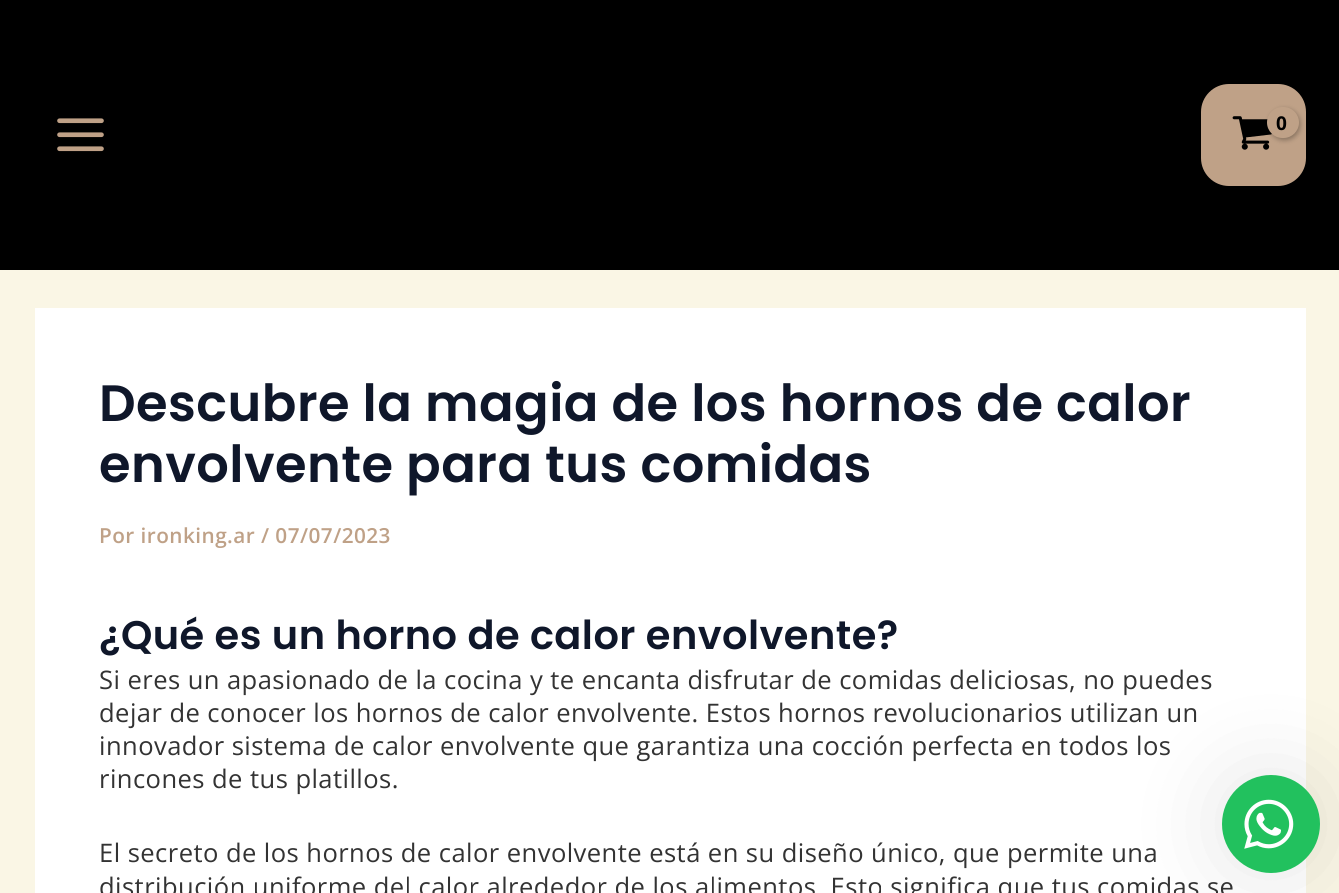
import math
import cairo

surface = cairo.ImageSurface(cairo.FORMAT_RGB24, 1339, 893)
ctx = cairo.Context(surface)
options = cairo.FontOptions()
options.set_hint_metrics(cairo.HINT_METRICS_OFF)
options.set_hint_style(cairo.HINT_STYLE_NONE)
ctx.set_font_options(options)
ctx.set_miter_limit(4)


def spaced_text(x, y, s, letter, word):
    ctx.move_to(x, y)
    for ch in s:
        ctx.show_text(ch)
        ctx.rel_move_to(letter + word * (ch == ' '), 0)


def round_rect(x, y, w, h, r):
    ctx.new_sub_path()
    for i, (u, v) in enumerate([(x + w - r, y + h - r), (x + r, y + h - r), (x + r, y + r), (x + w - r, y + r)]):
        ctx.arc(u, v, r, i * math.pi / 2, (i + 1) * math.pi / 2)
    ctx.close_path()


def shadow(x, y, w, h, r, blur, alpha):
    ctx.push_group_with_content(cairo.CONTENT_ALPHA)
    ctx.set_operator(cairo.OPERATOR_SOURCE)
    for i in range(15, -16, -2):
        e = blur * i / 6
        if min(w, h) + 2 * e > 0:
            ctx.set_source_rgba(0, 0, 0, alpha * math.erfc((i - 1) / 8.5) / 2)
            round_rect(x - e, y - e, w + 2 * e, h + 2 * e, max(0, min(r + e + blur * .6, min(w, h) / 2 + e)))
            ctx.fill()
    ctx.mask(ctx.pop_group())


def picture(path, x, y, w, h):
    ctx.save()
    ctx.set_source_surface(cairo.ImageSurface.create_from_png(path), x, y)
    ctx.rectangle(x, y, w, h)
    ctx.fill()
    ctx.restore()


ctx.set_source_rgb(0.98, 0.961, 0.898)
ctx.paint()
ctx.set_source_rgb(0, 0, 0)
ctx.rectangle(0, 0, 1339, 270)
ctx.fill()
picture("img1.png", 57, 118, 47, 34)
ctx.set_source_rgb(0.749, 0.631, 0.529)
round_rect(1201, 84, 105, 102, 28)
ctx.fill()
picture("img2.png", 1232, 116, 41, 34)
ctx.set_source_rgb(0, 0, 0)
shadow(1269, 109, 31, 31, 15.5, 2.5, 0.3)
ctx.set_source_rgb(0.749, 0.631, 0.529)
round_rect(1267, 107, 32, 31, 15.5)
ctx.fill()
ctx.select_font_face("Open Sans", cairo.FONT_SLANT_NORMAL, cairo.FONT_WEIGHT_BOLD)
ctx.set_font_size(19)
ctx.set_source_rgb(0, 0, 0)
spaced_text(1276, 130, "0", -1, 0)
ctx.set_source_rgb(1, 1, 1)
ctx.rectangle(35, 308, 1271, 585)
ctx.fill()
ctx.select_font_face("Poppins SemiBold")
ctx.set_font_size(51.1)
ctx.set_source_rgb(0.059, 0.09, 0.165)
spaced_text(99, 421, "Descubre la magia de los hornos de calor", 0.45, 0)
spaced_text(99, 482, "envolvente para tus comidas", 0.45, 0)
ctx.select_font_face("Open Sans SemiBold")
ctx.set_font_size(20.75)
ctx.set_source_rgb(0.749, 0.631, 0.529)
spaced_text(99, 543, "Por ironking.ar / 07/07/2023", 0.45, 0)
ctx.select_font_face("Poppins SemiBold")
ctx.set_font_size(39.9)
ctx.set_source_rgb(0.059, 0.09, 0.165)
spaced_text(99, 649, "¿Qué es un horno de calor envolvente?", 0.45, 0)
ctx.select_font_face("Open Sans")
ctx.set_font_size(25.55)
ctx.set_source_rgb(0.2, 0.2, 0.2)
spaced_text(99, 689, "Si eres un apasionado de la cocina y te encanta disfrutar de comidas deliciosas, no puedes", 0.45, 0)
spaced_text(99, 722, "dejar de conocer los hornos de calor envolvente. Estos hornos revolucionarios utilizan un", 0.45, 0)
spaced_text(99, 755, "innovador sistema de calor envolvente que garantiza una cocción perfecta en todos los", 0.45, 0)
spaced_text(99, 788, "rincones de tus platillos.", 0.45, 0)
spaced_text(99, 862, "El secreto de los hornos de calor envolvente está en su diseño único, que permite una", 0.45, 0)
spaced_text(99, 896, "distribución uniforme del calor alrededor de los alimentos. Esto significa que tus comidas se", 0.45, 0)
ctx.set_source_rgb(0, 0, 0)
shadow(1222, 775, 98, 98, 49, 44, 0.1)
ctx.set_source_rgb(0.133, 0.757, 0.369)
ctx.arc(1271, 824, 49, 0, 2 * math.pi)
ctx.fill()
picture("img3.png", 1244, 799, 50, 50)
surface.write_to_png("page.png")
